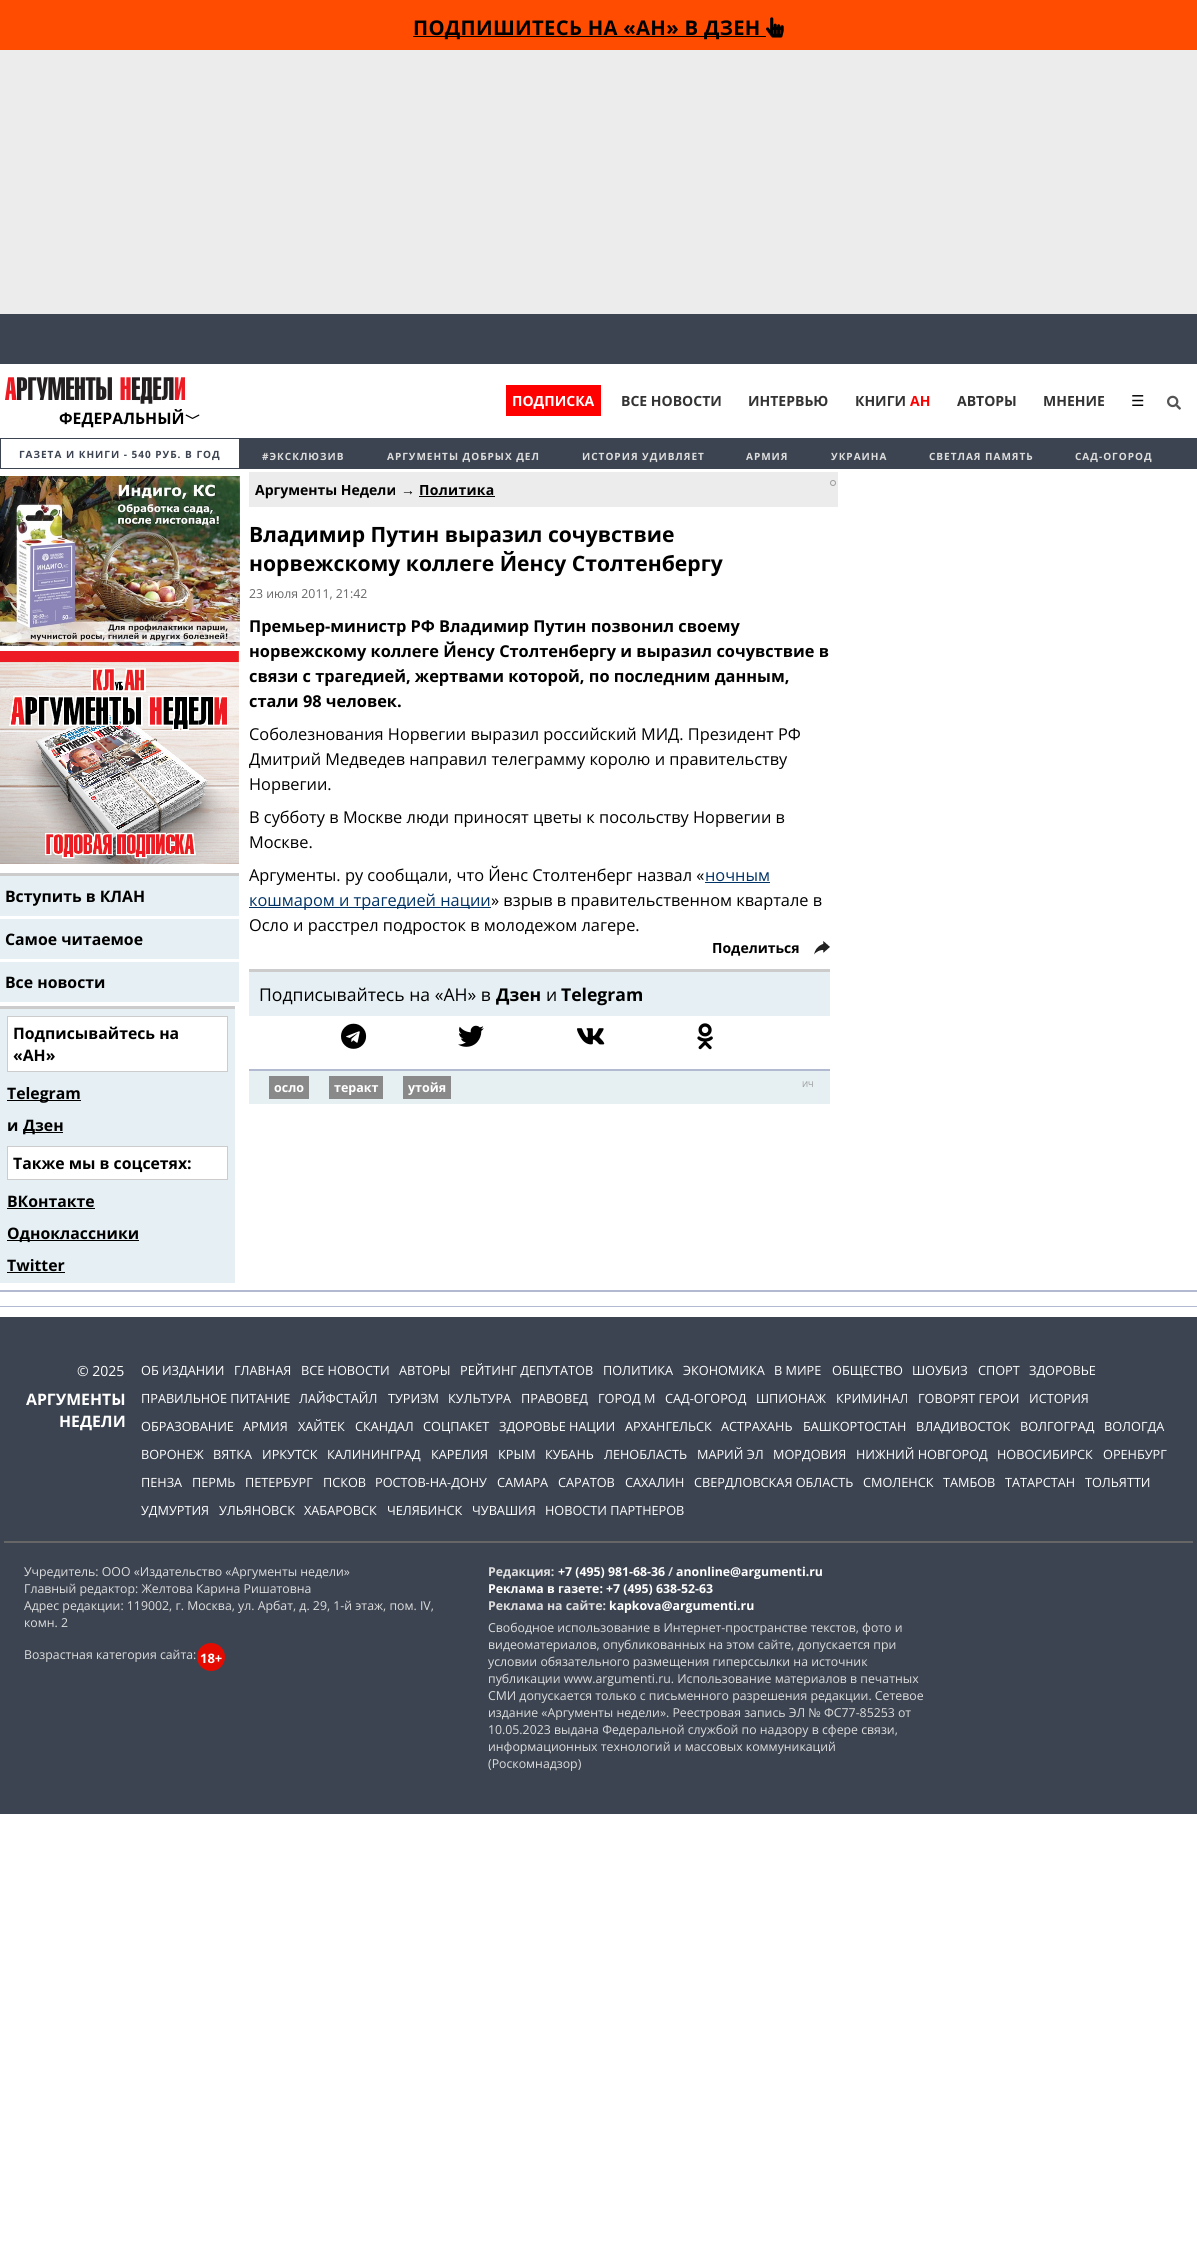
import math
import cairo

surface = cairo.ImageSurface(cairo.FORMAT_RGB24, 1197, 2243)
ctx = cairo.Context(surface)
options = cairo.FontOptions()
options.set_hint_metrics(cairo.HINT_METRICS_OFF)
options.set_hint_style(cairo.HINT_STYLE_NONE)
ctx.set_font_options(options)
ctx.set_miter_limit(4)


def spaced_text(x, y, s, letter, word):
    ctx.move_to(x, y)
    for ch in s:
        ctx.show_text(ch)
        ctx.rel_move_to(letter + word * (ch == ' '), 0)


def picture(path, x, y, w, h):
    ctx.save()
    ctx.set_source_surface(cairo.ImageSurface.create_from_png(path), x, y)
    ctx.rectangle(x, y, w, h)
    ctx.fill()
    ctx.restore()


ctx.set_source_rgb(1, 1, 1)
ctx.paint()
ctx.set_source_rgb(1, 0.298, 0)
ctx.rectangle(0, 0, 1197, 50)
ctx.fill()
ctx.set_source_rgb(0, 0, 0)
ctx.rectangle(413, 36, 353, 1)
ctx.fill()
ctx.select_font_face("Open Sans", cairo.FONT_SLANT_NORMAL, cairo.FONT_WEIGHT_BOLD)
ctx.set_font_size(20.25)
spaced_text(413, 35, "ПОДПИШИТЕСЬ НА «АН» В ДЗЕН", 0.3, 0)
picture("img1.png", 766, 17, 18, 21)
ctx.set_source_rgb(0.925, 0.925, 0.925)
ctx.rectangle(0, 50, 1197, 264)
ctx.fill()
ctx.set_source_rgb(0.235, 0.267, 0.318)
ctx.rectangle(0, 314, 1197, 50)
ctx.fill()
ctx.set_source_rgb(1, 0, 0)
ctx.rectangle(506, 385, 95, 31)
ctx.fill()
ctx.set_font_size(14)
ctx.set_source_rgb(1, 1, 1)
ctx.move_to(512, 406)
ctx.show_text("ПОДПИСКА")
ctx.set_source_rgb(0.2, 0.2, 0.2)
ctx.move_to(621, 406)
ctx.show_text("ВСЕ НОВОСТИ")
ctx.move_to(748, 406)
ctx.show_text("ИНТЕРВЬЮ")
ctx.move_to(855, 406)
ctx.show_text("КНИГИ")
ctx.set_source_rgb(1, 0, 0)
ctx.move_to(910, 406)
ctx.show_text("АН")
ctx.set_source_rgb(0.2, 0.2, 0.2)
ctx.move_to(957, 406)
ctx.show_text("АВТОРЫ")
ctx.move_to(1043, 406)
ctx.show_text("МНЕНИЕ")
ctx.select_font_face("DejaVu Sans")
ctx.set_font_size(15)
ctx.set_source_rgb(0, 0, 0)
ctx.move_to(1131, 406)
ctx.show_text("☰")
picture("img2.png", 1167, 395, 14, 15)
picture("img3.png", 5, 377, 180, 27)
ctx.select_font_face("Open Sans", cairo.FONT_SLANT_NORMAL, cairo.FONT_WEIGHT_BOLD)
ctx.set_font_size(15.8)
ctx.move_to(59, 424)
ctx.show_text("ФЕДЕРАЛЬНЫЙ")
ctx.select_font_face("WenQuanYi Zen Hei", cairo.FONT_SLANT_NORMAL, cairo.FONT_WEIGHT_BOLD)
ctx.move_to(185, 424)
ctx.show_text("﹀")
ctx.set_source_rgb(0.235, 0.267, 0.318)
ctx.rectangle(0, 438, 1197, 31)
ctx.fill()
ctx.set_source_rgb(1, 1, 1)
ctx.rectangle(1, 439, 238, 29)
ctx.fill()
ctx.select_font_face("Open Sans", cairo.FONT_SLANT_NORMAL, cairo.FONT_WEIGHT_BOLD)
ctx.set_font_size(10)
ctx.set_source_rgb(0.239, 0.267, 0.318)
spaced_text(19, 458, "ГАЗЕТА И КНИГИ - 540 РУБ. В ГОД", 1, 0)
ctx.set_source_rgb(0.867, 0.867, 0.867)
spaced_text(262, 460, "#ЭКСКЛЮЗИВ", 1, 0)
spaced_text(387, 460, "АРГУМЕНТЫ ДОБРЫХ ДЕЛ", 1, 0)
spaced_text(582, 460, "ИСТОРИЯ УДИВЛЯЕТ", 1, 0)
spaced_text(746, 460, "АРМИЯ", 1, 0)
spaced_text(831, 460, "УКРАИНА", 1, 0)
spaced_text(929, 460, "СВЕТЛАЯ ПАМЯТЬ", 1, 0)
spaced_text(1075, 460, "САД-ОГОРОД", 1, 0)
ctx.set_source_rgb(0.694, 0.729, 0.816)
ctx.rectangle(0, 1290, 1197, 2)
ctx.fill()
picture("img4.png", 0, 476, 240, 170)
picture("img5.png", 0, 651, 239, 213)
ctx.set_source_rgb(0.902, 0.941, 0.957)
ctx.rectangle(0, 876, 239, 40)
ctx.fill()
ctx.set_source_rgb(0.8, 0.8, 0.8)
ctx.rectangle(0, 873, 239, 3)
ctx.fill()
ctx.set_font_size(15.8)
ctx.set_source_rgb(0, 0, 0)
ctx.move_to(5, 902)
ctx.show_text("Вступить в КЛАН")
ctx.set_source_rgb(0.902, 0.941, 0.957)
ctx.rectangle(0, 919, 239, 40)
ctx.fill()
ctx.set_source_rgb(0, 0, 0)
ctx.move_to(5, 945)
ctx.show_text("Самое читаемое")
ctx.set_source_rgb(0.902, 0.941, 0.957)
ctx.rectangle(0, 962, 239, 40)
ctx.fill()
ctx.set_source_rgb(0, 0, 0)
ctx.move_to(5, 988)
ctx.show_text("Все новости")
ctx.set_source_rgb(0.902, 0.941, 0.957)
ctx.rectangle(0, 1009, 235, 274)
ctx.fill()
ctx.set_source_rgb(0.8, 0.8, 0.8)
ctx.rectangle(0, 1006, 235, 3)
ctx.fill()
ctx.set_source_rgb(1, 1, 1)
ctx.rectangle(7.5, 1016.5, 220, 55)
ctx.fill_preserve()
ctx.set_source_rgb(0.8, 0.8, 0.8)
ctx.set_line_width(1)
ctx.stroke()
ctx.set_source_rgb(0, 0, 0)
ctx.move_to(13, 1039)
ctx.show_text("Подписывайтесь на")
ctx.move_to(13, 1061)
ctx.show_text("«АН»")
ctx.rectangle(7, 1100, 74, 1)
ctx.fill()
ctx.move_to(7, 1099)
ctx.show_text("Telegram")
ctx.move_to(7, 1131)
ctx.show_text("и")
ctx.rectangle(23, 1132, 40, 1)
ctx.fill()
ctx.move_to(23, 1131)
ctx.show_text("Дзен")
ctx.set_source_rgb(1, 1, 1)
ctx.rectangle(7.5, 1146.5, 220, 33)
ctx.fill_preserve()
ctx.set_source_rgb(0.8, 0.8, 0.8)
ctx.stroke()
ctx.set_source_rgb(0, 0, 0)
ctx.move_to(13, 1169)
ctx.show_text("Также мы в соцсетях:")
ctx.move_to(7, 1207)
ctx.show_text("ВКонтакте")
ctx.rectangle(7, 1208, 88, 1)
ctx.fill()
ctx.rectangle(7, 1240, 132, 1)
ctx.fill()
ctx.move_to(7, 1239)
ctx.show_text("Одноклассники")
ctx.move_to(7, 1271)
ctx.show_text("Twitter")
ctx.rectangle(7, 1272, 58, 1)
ctx.fill()
ctx.set_source_rgb(0.925, 0.925, 0.925)
ctx.rectangle(249, 472, 589, 35)
ctx.fill()
ctx.arc(833, 483, 2.5, 0, 2 * math.pi)
ctx.set_source_rgb(0.612, 0.612, 0.612)
ctx.stroke()
ctx.set_font_size(14)
ctx.set_source_rgb(0, 0, 0)
ctx.move_to(255, 495)
ctx.show_text("Аргументы Недели")
ctx.select_font_face("Liberation Sans", cairo.FONT_SLANT_NORMAL, cairo.FONT_WEIGHT_BOLD)
ctx.move_to(401, 495)
ctx.show_text("→")
ctx.select_font_face("Open Sans", cairo.FONT_SLANT_NORMAL, cairo.FONT_WEIGHT_BOLD)
spaced_text(419, 495, "Политика", 0.3, 0)
ctx.rectangle(419, 496, 76, 1)
ctx.fill()
ctx.set_font_size(21.1)
ctx.move_to(249, 542)
ctx.show_text("Владимир Путин выразил сочувствие")
ctx.move_to(249, 571)
ctx.show_text("норвежскому коллеге Йенсу Столтенбергу")
ctx.select_font_face("Open Sans")
ctx.set_font_size(12.3)
ctx.set_source_rgb(0.4, 0.4, 0.4)
ctx.move_to(249, 598)
ctx.show_text("23 июля 2011, 21:42")
ctx.select_font_face("Open Sans", cairo.FONT_SLANT_NORMAL, cairo.FONT_WEIGHT_BOLD)
ctx.set_font_size(16.35)
ctx.set_source_rgb(0, 0, 0)
ctx.move_to(249, 632)
ctx.show_text("Премьер-министр РФ Владимир Путин позвонил своему")
ctx.move_to(249, 657)
ctx.show_text("норвежскому коллеге Йенсу Столтенбергу и выразил сочувствие в")
ctx.move_to(249, 682)
ctx.show_text("связи с трагедией, жертвами которой, по последним данным,")
ctx.move_to(249, 707)
ctx.show_text("стали 98 человек.")
ctx.select_font_face("Open Sans")
ctx.move_to(249, 740)
ctx.show_text("Соболезнования Норвегии выразил российский МИД. Президент РФ")
ctx.move_to(249, 765)
ctx.show_text("Дмитрий Медведев направил телеграмму королю и правительству")
ctx.move_to(249, 790)
ctx.show_text("Норвегии.")
ctx.move_to(249, 823)
ctx.show_text("В субботу в Москве люди приносят цветы к посольству Норвегии в")
ctx.move_to(249, 848)
ctx.show_text("Москве.")
ctx.move_to(249, 881)
ctx.show_text("Аргументы. ру сообщали, что Йенс Столтенберг назвал «")
ctx.set_source_rgb(0, 0.2, 0.4)
ctx.move_to(705, 881)
ctx.show_text("ночным")
ctx.rectangle(705, 882, 65, 1)
ctx.fill()
ctx.rectangle(249, 907, 242, 1)
ctx.fill()
ctx.move_to(249, 906)
ctx.show_text("кошмаром и трагедией нации")
ctx.set_source_rgb(0, 0, 0)
ctx.move_to(491, 906)
ctx.show_text("» взрыв в правительственном квартале в")
ctx.move_to(249, 931)
ctx.show_text("Осло и расстрел подросток в молодежом лагере.")
picture("img6.png", 814, 941, 16, 14)
ctx.select_font_face("Open Sans", cairo.FONT_SLANT_NORMAL, cairo.FONT_WEIGHT_BOLD)
ctx.set_font_size(14)
ctx.move_to(712, 953)
ctx.show_text("Поделиться")
ctx.set_source_rgb(0.902, 0.941, 0.957)
ctx.rectangle(249, 972, 581, 44)
ctx.fill()
ctx.set_source_rgb(0.8, 0.8, 0.8)
ctx.rectangle(249, 969, 581, 3)
ctx.fill()
ctx.select_font_face("Open Sans")
ctx.set_font_size(17.6)
ctx.set_source_rgb(0, 0, 0)
ctx.move_to(259, 1001)
ctx.show_text("Подписывайтесь на «АН» в")
ctx.select_font_face("Open Sans", cairo.FONT_SLANT_NORMAL, cairo.FONT_WEIGHT_BOLD)
ctx.move_to(496, 1001)
ctx.show_text("Дзен")
ctx.select_font_face("Open Sans")
ctx.move_to(546, 1001)
ctx.show_text("и")
ctx.select_font_face("Open Sans", cairo.FONT_SLANT_NORMAL, cairo.FONT_WEIGHT_BOLD)
ctx.move_to(561, 1001)
ctx.show_text("Telegram")
picture("img7.png", 341, 1023, 26, 26)
picture("img8.png", 458, 1025, 26, 22)
picture("img9.png", 577, 1028, 28, 17)
picture("img10.png", 697, 1023, 16, 27)
ctx.set_source_rgb(0.902, 0.941, 0.953)
ctx.rectangle(249, 1071, 581, 33)
ctx.fill()
ctx.set_source_rgb(0.694, 0.729, 0.816)
ctx.rectangle(249, 1069, 581, 2)
ctx.fill()
ctx.set_source_rgb(0.541, 0.537, 0.537)
ctx.rectangle(269, 1076, 40, 23)
ctx.fill()
ctx.set_font_size(12.5)
ctx.set_source_rgb(1, 1, 1)
ctx.move_to(274, 1092)
ctx.show_text("осло")
ctx.set_source_rgb(0.541, 0.537, 0.537)
ctx.rectangle(329, 1076, 54, 23)
ctx.fill()
ctx.set_source_rgb(1, 1, 1)
ctx.move_to(334, 1092)
ctx.show_text("теракт")
ctx.set_source_rgb(0.541, 0.537, 0.537)
ctx.rectangle(403, 1076, 48, 23)
ctx.fill()
ctx.set_source_rgb(1, 1, 1)
ctx.move_to(408, 1092)
ctx.show_text("утойя")
ctx.select_font_face("Open Sans")
ctx.set_font_size(8)
ctx.set_source_rgb(0.576, 0.576, 0.576)
ctx.move_to(802, 1087)
ctx.show_text("ИЧ")
ctx.set_source_rgb(0.694, 0.729, 0.816)
ctx.rectangle(0, 1306, 1197, 1)
ctx.fill()
ctx.set_source_rgb(0.235, 0.267, 0.318)
ctx.rectangle(0, 1317, 1197, 497)
ctx.fill()
ctx.set_source_rgb(0.4, 0.4, 0.4)
ctx.rectangle(4, 1541, 1189, 2)
ctx.fill()
ctx.set_font_size(14)
ctx.set_source_rgb(1, 1, 1)
ctx.move_to(77, 1376)
ctx.show_text("© 2025")
ctx.select_font_face("Open Sans", cairo.FONT_SLANT_NORMAL, cairo.FONT_WEIGHT_BOLD)
ctx.set_font_size(15.8)
ctx.move_to(26, 1405)
ctx.show_text("АРГУМЕНТЫ")
ctx.move_to(59, 1427)
ctx.show_text("НЕДЕЛИ")
ctx.select_font_face("Open Sans")
ctx.set_font_size(12.7)
ctx.move_to(141, 1375)
ctx.show_text("ОБ ИЗДАНИИ")
ctx.move_to(234, 1375)
ctx.show_text("ГЛАВНАЯ")
ctx.move_to(301, 1375)
ctx.show_text("ВСЕ НОВОСТИ")
ctx.move_to(399, 1375)
ctx.show_text("АВТОРЫ")
ctx.move_to(460, 1375)
ctx.show_text("РЕЙТИНГ ДЕПУТАТОВ")
ctx.move_to(603, 1375)
ctx.show_text("ПОЛИТИКА")
ctx.move_to(683, 1375)
ctx.show_text("ЭКОНОМИКА")
ctx.move_to(774, 1375)
ctx.show_text("В МИРЕ")
ctx.move_to(832, 1375)
ctx.show_text("ОБЩЕСТВО")
ctx.move_to(912, 1375)
ctx.show_text("ШОУБИЗ")
ctx.move_to(978, 1375)
ctx.show_text("СПОРТ")
ctx.move_to(1029, 1375)
ctx.show_text("ЗДОРОВЬЕ")
ctx.move_to(141, 1403)
ctx.show_text("ПРАВИЛЬНОЕ ПИТАНИЕ")
ctx.move_to(299, 1403)
ctx.show_text("ЛАЙФСТАЙЛ")
ctx.move_to(388, 1403)
ctx.show_text("ТУРИЗМ")
ctx.move_to(448, 1403)
ctx.show_text("КУЛЬТУРА")
ctx.move_to(521, 1403)
ctx.show_text("ПРАВОВЕД")
ctx.move_to(598, 1403)
ctx.show_text("ГОРОД М")
ctx.move_to(665, 1403)
ctx.show_text("САД-ОГОРОД")
ctx.move_to(756, 1403)
ctx.show_text("ШПИОНАЖ")
ctx.move_to(836, 1403)
ctx.show_text("КРИМИНАЛ")
ctx.move_to(918, 1403)
ctx.show_text("ГОВОРЯТ ГЕРОИ")
ctx.move_to(1029, 1403)
ctx.show_text("ИСТОРИЯ")
ctx.move_to(141, 1431)
ctx.show_text("ОБРАЗОВАНИЕ")
ctx.move_to(243, 1431)
ctx.show_text("АРМИЯ")
ctx.move_to(298, 1431)
ctx.show_text("ХАЙТЕК")
ctx.move_to(355, 1431)
ctx.show_text("СКАНДАЛ")
ctx.move_to(423, 1431)
ctx.show_text("СОЦПАКЕТ")
ctx.move_to(499, 1431)
ctx.show_text("ЗДОРОВЬЕ НАЦИИ")
ctx.move_to(625, 1431)
ctx.show_text("АРХАНГЕЛЬСК")
ctx.move_to(721, 1431)
ctx.show_text("АСТРАХАНЬ")
ctx.move_to(803, 1431)
ctx.show_text("БАШКОРТОСТАН")
ctx.move_to(916, 1431)
ctx.show_text("ВЛАДИВОСТОК")
ctx.move_to(1020, 1431)
ctx.show_text("ВОЛГОГРАД")
ctx.move_to(1104, 1431)
ctx.show_text("ВОЛОГДА")
ctx.move_to(141, 1459)
ctx.show_text("ВОРОНЕЖ")
ctx.move_to(213, 1459)
ctx.show_text("ВЯТКА")
ctx.move_to(262, 1459)
ctx.show_text("ИРКУТСК")
ctx.move_to(327, 1459)
ctx.show_text("КАЛИНИНГРАД")
ctx.move_to(431, 1459)
ctx.show_text("КАРЕЛИЯ")
ctx.move_to(498, 1459)
ctx.show_text("КРЫМ")
ctx.move_to(545, 1459)
ctx.show_text("КУБАНЬ")
ctx.move_to(604, 1459)
ctx.show_text("ЛЕНОБЛАСТЬ")
ctx.move_to(697, 1459)
ctx.show_text("МАРИЙ ЭЛ")
ctx.move_to(773, 1459)
ctx.show_text("МОРДОВИЯ")
ctx.move_to(856, 1459)
ctx.show_text("НИЖНИЙ НОВГОРОД")
ctx.move_to(997, 1459)
ctx.show_text("НОВОСИБИРСК")
ctx.move_to(1103, 1459)
ctx.show_text("ОРЕНБУРГ")
ctx.move_to(141, 1487)
ctx.show_text("ПЕНЗА")
ctx.move_to(192, 1487)
ctx.show_text("ПЕРМЬ")
ctx.move_to(245, 1487)
ctx.show_text("ПЕТЕРБУРГ")
ctx.move_to(323, 1487)
ctx.show_text("ПСКОВ")
ctx.move_to(375, 1487)
ctx.show_text("РОСТОВ-НА-ДОНУ")
ctx.move_to(497, 1487)
ctx.show_text("САМАРА")
ctx.move_to(558, 1487)
ctx.show_text("САРАТОВ")
ctx.move_to(625, 1487)
ctx.show_text("САХАЛИН")
ctx.move_to(694, 1487)
ctx.show_text("СВЕРДЛОВСКАЯ ОБЛАСТЬ")
ctx.move_to(863, 1487)
ctx.show_text("СМОЛЕНСК")
ctx.move_to(943, 1487)
ctx.show_text("ТАМБОВ")
ctx.move_to(1005, 1487)
ctx.show_text("ТАТАРСТАН")
ctx.move_to(1085, 1487)
ctx.show_text("ТОЛЬЯТТИ")
ctx.move_to(141, 1515)
ctx.show_text("УДМУРТИЯ")
ctx.move_to(219, 1515)
ctx.show_text("УЛЬЯНОВСК")
ctx.move_to(304, 1515)
ctx.show_text("ХАБАРОВСК")
ctx.move_to(387, 1515)
ctx.show_text("ЧЕЛЯБИНСК")
ctx.move_to(472, 1515)
ctx.show_text("ЧУВАШИЯ")
ctx.move_to(545, 1515)
ctx.show_text("НОВОСТИ ПАРТНЕРОВ")
ctx.set_font_size(12.3)
ctx.set_source_rgb(0.867, 0.867, 0.867)
ctx.move_to(24, 1576)
ctx.show_text("Учредитель: ООО «Издательство «Аргументы недели»")
ctx.move_to(24, 1593)
ctx.show_text("Главный редактор: Желтова Карина Ришатовна")
ctx.move_to(24, 1610)
ctx.show_text("Адрес редакции: 119002, г. Москва, ул. Арбат, д. 29, 1-й этаж, пом. IV,")
ctx.move_to(24, 1627)
ctx.show_text("комн. 2")
ctx.move_to(24, 1659)
ctx.show_text("Возрастная категория сайта:")
ctx.set_source_rgb(0.898, 0.043, 0)
ctx.new_path()
ctx.arc(211, 1657, 14, 0, 2 * math.pi)
ctx.fill()
ctx.select_font_face("Open Sans", cairo.FONT_SLANT_NORMAL, cairo.FONT_WEIGHT_BOLD)
ctx.set_font_size(13)
ctx.set_source_rgb(1, 1, 1)
ctx.move_to(200, 1663)
ctx.show_text("18+")
ctx.set_font_size(12.3)
ctx.set_source_rgb(0.867, 0.867, 0.867)
ctx.move_to(488, 1576)
ctx.show_text("Редакция:")
ctx.set_source_rgb(1, 1, 1)
ctx.move_to(558, 1576)
ctx.show_text("+7 (495) 981-68-36")
ctx.set_source_rgb(0.867, 0.867, 0.867)
ctx.move_to(668, 1576)
ctx.show_text("/")
ctx.set_source_rgb(1, 1, 1)
ctx.move_to(676, 1576)
ctx.show_text("anonline@argumenti.ru")
ctx.move_to(488, 1593)
ctx.show_text("Реклама в газете: +7 (495) 638-52-63")
ctx.set_source_rgb(0.867, 0.867, 0.867)
ctx.move_to(488, 1610)
ctx.show_text("Реклама на сайте:")
ctx.set_source_rgb(1, 1, 1)
ctx.move_to(609, 1610)
ctx.show_text("kapkova@argumenti.ru")
ctx.select_font_face("Open Sans")
ctx.set_source_rgb(0.867, 0.867, 0.867)
ctx.move_to(488, 1632)
ctx.show_text("Свободное использование в Интернет-пространстве текстов, фото и")
ctx.move_to(488, 1649)
ctx.show_text("видеоматериалов, опубликованных на этом сайте, допускается при")
ctx.move_to(488, 1666)
ctx.show_text("условии обязательного размещения гиперссылки на источник")
ctx.move_to(488, 1683)
ctx.show_text("публикации www.argumenti.ru. Использование материалов в печатных")
ctx.move_to(488, 1700)
ctx.show_text("СМИ допускается только с письменного разрешения редакции. Сетевое")
ctx.move_to(488, 1717)
ctx.show_text("издание «Аргументы недели». Реестровая запись ЭЛ № ФС77-85253 от")
ctx.move_to(488, 1734)
ctx.show_text("10.05.2023 выдана Федеральной службой по надзору в сфере связи,")
ctx.move_to(488, 1751)
ctx.show_text("информационных технологий и массовых коммуникаций")
ctx.move_to(488, 1768)
ctx.show_text("(Роскомнадзор)")
surface.write_to_png("page.png")
